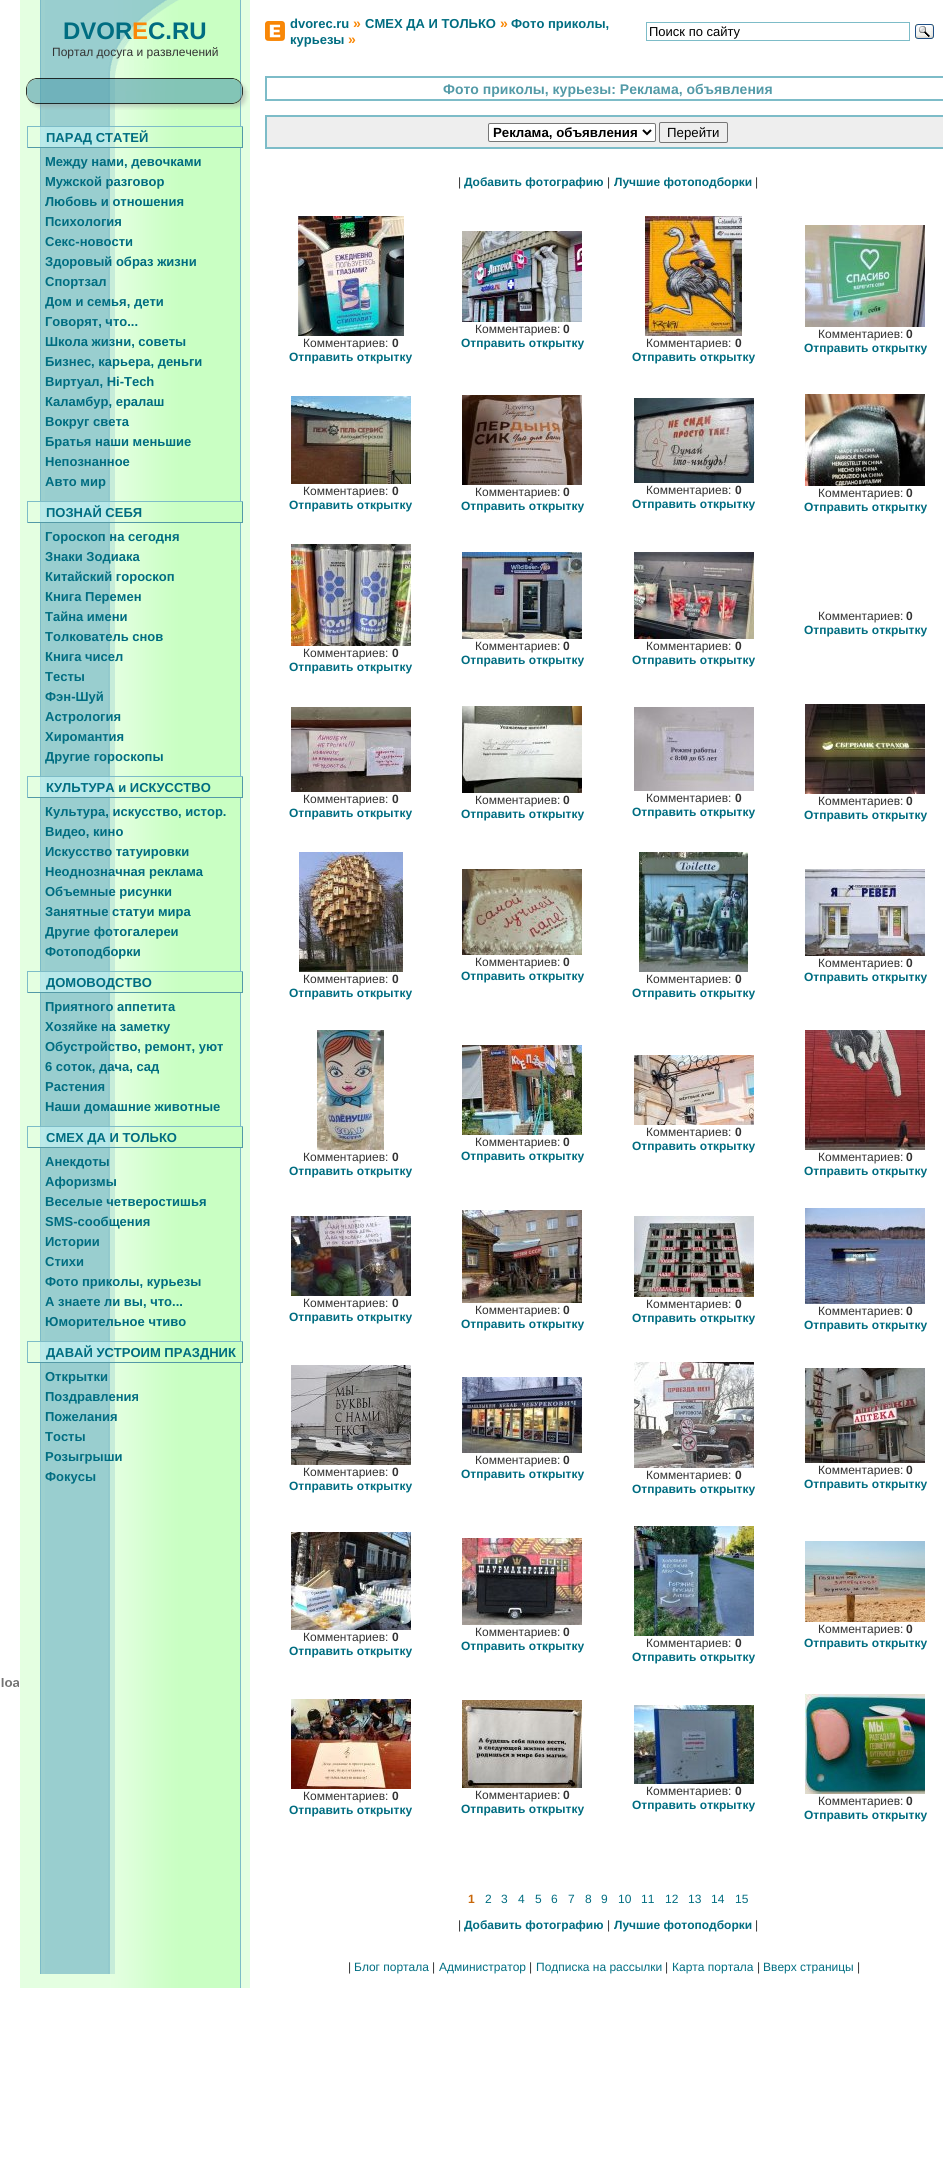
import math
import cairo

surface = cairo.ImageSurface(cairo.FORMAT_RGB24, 943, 2179)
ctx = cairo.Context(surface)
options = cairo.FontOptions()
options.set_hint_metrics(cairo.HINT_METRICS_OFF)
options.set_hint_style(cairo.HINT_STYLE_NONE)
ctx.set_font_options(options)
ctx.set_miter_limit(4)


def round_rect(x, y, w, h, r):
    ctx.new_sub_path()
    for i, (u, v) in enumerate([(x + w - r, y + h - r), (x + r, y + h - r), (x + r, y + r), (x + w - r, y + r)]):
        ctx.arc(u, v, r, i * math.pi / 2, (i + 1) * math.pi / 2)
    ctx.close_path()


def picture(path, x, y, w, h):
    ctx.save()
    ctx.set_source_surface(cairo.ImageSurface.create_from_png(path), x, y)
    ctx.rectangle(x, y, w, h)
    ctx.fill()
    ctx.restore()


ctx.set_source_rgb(1, 1, 1)
ctx.paint()
picture("img1.png", 20, 0, 230, 75)
ctx.select_font_face("Liberation Sans", cairo.FONT_SLANT_NORMAL, cairo.FONT_WEIGHT_BOLD)
ctx.set_font_size(24)
ctx.set_source_rgb(0, 0.427, 0.506)
ctx.move_to(63, 39)
ctx.show_text("DVOR")
ctx.set_source_rgb(0.973, 0.533, 0.035)
ctx.move_to(132, 39)
ctx.show_text("E")
ctx.set_source_rgb(0, 0.427, 0.506)
ctx.move_to(148, 39)
ctx.show_text("C.RU")
ctx.select_font_face("Liberation Sans")
ctx.set_font_size(12)
ctx.set_source_rgb(0.2, 0.2, 0.2)
ctx.move_to(52, 56)
ctx.show_text("Портал досуга и развлечений")
picture("img2.png", 265, 21, 20, 20)
ctx.select_font_face("Liberation Sans", cairo.FONT_SLANT_NORMAL, cairo.FONT_WEIGHT_BOLD)
ctx.set_font_size(13)
ctx.set_source_rgb(0, 0.427, 0.506)
ctx.move_to(290, 28)
ctx.show_text("dvorec.ru")
ctx.set_font_size(14)
ctx.set_source_rgb(0.973, 0.533, 0.035)
ctx.move_to(353, 28)
ctx.show_text("»")
ctx.set_font_size(13)
ctx.set_source_rgb(0, 0.427, 0.506)
ctx.move_to(365, 28)
ctx.show_text("СМЕХ ДА И ТОЛЬКО")
ctx.set_font_size(14)
ctx.set_source_rgb(0.973, 0.533, 0.035)
ctx.move_to(500, 28)
ctx.show_text("»")
ctx.set_font_size(13)
ctx.set_source_rgb(0, 0.427, 0.506)
ctx.move_to(511, 28)
ctx.show_text("Фото приколы,")
ctx.move_to(290, 44)
ctx.show_text("курьезы")
ctx.set_font_size(14)
ctx.set_source_rgb(0.973, 0.533, 0.035)
ctx.move_to(348, 44)
ctx.show_text("»")
ctx.rectangle(646.5, 22.5, 263, 18)
ctx.set_source_rgb(0.49, 0.737, 0.784)
ctx.set_line_width(1)
ctx.stroke()
ctx.select_font_face("Liberation Sans")
ctx.set_font_size(13)
ctx.set_source_rgb(0, 0, 0)
ctx.move_to(649, 36)
ctx.show_text("Поиск по сайту")
picture("img3.png", 915, 24, 19, 15)
picture("img4.png", 20, 75, 230, 1857)
picture("img5.png", 26, 78, 11, 12)
picture("img6.png", 37, 78, 193, 12)
picture("img7.png", 230, 78, 18, 12)
picture("img8.png", 26, 90, 11, 1)
picture("img9.png", 37, 90, 193, 1)
picture("img10.png", 230, 90, 18, 1)
picture("img11.png", 26, 91, 11, 17)
picture("img12.png", 37, 91, 193, 19)
picture("img13.png", 230, 91, 19, 19)
ctx.set_source_rgb(0.49, 0.737, 0.784)
ctx.rectangle(27, 126, 216, 1)
ctx.fill()
ctx.rectangle(27, 127, 1, 21)
ctx.fill()
picture("img14.png", 40, 127, 202, 20)
ctx.select_font_face("Liberation Sans", cairo.FONT_SLANT_NORMAL, cairo.FONT_WEIGHT_BOLD)
ctx.set_source_rgb(0, 0.427, 0.506)
ctx.move_to(46, 142)
ctx.show_text("ПАРАД СТАТЕЙ")
ctx.set_source_rgb(0.325, 0.604, 0.655)
ctx.rectangle(242, 127, 1, 20)
ctx.fill()
ctx.rectangle(28, 147, 215, 1)
ctx.fill()
ctx.set_source_rgb(0, 0.427, 0.506)
ctx.move_to(45, 166)
ctx.show_text("Между нами, девочками")
ctx.move_to(45, 186)
ctx.show_text("Мужской разговор")
ctx.move_to(45, 206)
ctx.show_text("Любовь и отношения")
ctx.move_to(45, 226)
ctx.show_text("Психология")
ctx.move_to(45, 246)
ctx.show_text("Секс-новости")
ctx.move_to(45, 266)
ctx.show_text("Здоровый образ жизни")
ctx.move_to(45, 286)
ctx.show_text("Спортзал")
ctx.move_to(45, 306)
ctx.show_text("Дом и семья, дети")
ctx.move_to(45, 326)
ctx.show_text("Говорят, что...")
ctx.move_to(45, 346)
ctx.show_text("Школа жизни, советы")
ctx.move_to(45, 366)
ctx.show_text("Бизнес, карьера, деньги")
ctx.move_to(45, 386)
ctx.show_text("Виртуал, Hi-Tech")
ctx.move_to(45, 406)
ctx.show_text("Каламбур, ералаш")
ctx.move_to(45, 426)
ctx.show_text("Вокруг света")
ctx.move_to(45, 446)
ctx.show_text("Братья наши меньшие")
ctx.move_to(45, 466)
ctx.show_text("Непознанное")
ctx.move_to(45, 486)
ctx.show_text("Авто мир")
ctx.set_source_rgb(0.49, 0.737, 0.784)
ctx.rectangle(27, 501, 216, 1)
ctx.fill()
ctx.rectangle(27, 502, 1, 21)
ctx.fill()
picture("img14.png", 40, 502, 202, 20)
ctx.set_source_rgb(0, 0.427, 0.506)
ctx.move_to(46, 517)
ctx.show_text("ПОЗНАЙ СЕБЯ")
ctx.set_source_rgb(0.325, 0.604, 0.655)
ctx.rectangle(242, 502, 1, 20)
ctx.fill()
ctx.rectangle(28, 522, 215, 1)
ctx.fill()
ctx.set_source_rgb(0, 0.427, 0.506)
ctx.move_to(45, 541)
ctx.show_text("Гороскоп на сегодня")
ctx.move_to(45, 561)
ctx.show_text("Знаки Зодиака")
ctx.move_to(45, 581)
ctx.show_text("Китайский гороскоп")
ctx.move_to(45, 601)
ctx.show_text("Книга Перемен")
ctx.move_to(45, 621)
ctx.show_text("Тайна имени")
ctx.move_to(45, 641)
ctx.show_text("Толкователь снов")
ctx.move_to(45, 661)
ctx.show_text("Книга чисел")
ctx.move_to(45, 681)
ctx.show_text("Тесты")
ctx.move_to(45, 701)
ctx.show_text("Фэн-Шуй")
ctx.move_to(45, 721)
ctx.show_text("Астрология")
ctx.move_to(45, 741)
ctx.show_text("Хиромантия")
ctx.move_to(45, 761)
ctx.show_text("Другие гороскопы")
ctx.set_source_rgb(0.49, 0.737, 0.784)
ctx.rectangle(27, 776, 216, 1)
ctx.fill()
ctx.rectangle(27, 777, 1, 21)
ctx.fill()
picture("img14.png", 40, 777, 202, 20)
ctx.set_source_rgb(0, 0.427, 0.506)
ctx.move_to(46, 792)
ctx.show_text("КУЛЬТУРА и ИСКУССТВО")
ctx.set_source_rgb(0.325, 0.604, 0.655)
ctx.rectangle(242, 777, 1, 20)
ctx.fill()
ctx.rectangle(28, 797, 215, 1)
ctx.fill()
ctx.set_source_rgb(0, 0.427, 0.506)
ctx.move_to(45, 816)
ctx.show_text("Культура, искусство, истор.")
ctx.move_to(45, 836)
ctx.show_text("Видео, кино")
ctx.move_to(45, 856)
ctx.show_text("Искусство татуировки")
ctx.move_to(45, 876)
ctx.show_text("Неоднозначная реклама")
ctx.move_to(45, 896)
ctx.show_text("Объемные рисунки")
ctx.move_to(45, 916)
ctx.show_text("Занятные статуи мира")
ctx.move_to(45, 936)
ctx.show_text("Другие фотогалереи")
ctx.move_to(45, 956)
ctx.show_text("Фотоподборки")
ctx.set_source_rgb(0.49, 0.737, 0.784)
ctx.rectangle(27, 971, 216, 1)
ctx.fill()
ctx.rectangle(27, 972, 1, 21)
ctx.fill()
picture("img14.png", 40, 972, 202, 20)
ctx.set_source_rgb(0, 0.427, 0.506)
ctx.move_to(46, 987)
ctx.show_text("ДОМОВОДСТВО")
ctx.set_source_rgb(0.325, 0.604, 0.655)
ctx.rectangle(242, 972, 1, 20)
ctx.fill()
ctx.rectangle(28, 992, 215, 1)
ctx.fill()
ctx.set_source_rgb(0, 0.427, 0.506)
ctx.move_to(45, 1011)
ctx.show_text("Приятного аппетита")
ctx.move_to(45, 1031)
ctx.show_text("Хозяйке на заметку")
ctx.move_to(45, 1051)
ctx.show_text("Обустройство, ремонт, уют")
ctx.move_to(45, 1071)
ctx.show_text("6 соток, дача, сад")
ctx.move_to(45, 1091)
ctx.show_text("Растения")
ctx.move_to(45, 1111)
ctx.show_text("Наши домашние животные")
ctx.set_source_rgb(0.49, 0.737, 0.784)
ctx.rectangle(27, 1126, 216, 1)
ctx.fill()
ctx.rectangle(27, 1127, 1, 21)
ctx.fill()
picture("img14.png", 40, 1127, 202, 20)
ctx.set_source_rgb(0, 0.427, 0.506)
ctx.move_to(46, 1142)
ctx.show_text("СМЕХ ДА И ТОЛЬКО")
ctx.set_source_rgb(0.325, 0.604, 0.655)
ctx.rectangle(242, 1127, 1, 20)
ctx.fill()
ctx.rectangle(28, 1147, 215, 1)
ctx.fill()
ctx.set_source_rgb(0, 0.427, 0.506)
ctx.move_to(45, 1166)
ctx.show_text("Анекдоты")
ctx.move_to(45, 1186)
ctx.show_text("Афоризмы")
ctx.move_to(45, 1206)
ctx.show_text("Веселые четверостишья")
ctx.move_to(45, 1226)
ctx.show_text("SMS-сообщения")
ctx.move_to(45, 1246)
ctx.show_text("Истории")
ctx.move_to(45, 1266)
ctx.show_text("Стихи")
ctx.move_to(45, 1286)
ctx.show_text("Фото приколы, курьезы")
ctx.move_to(45, 1306)
ctx.show_text("А знаете ли вы, что...")
ctx.move_to(45, 1326)
ctx.show_text("Юморительное чтиво")
ctx.set_source_rgb(0.49, 0.737, 0.784)
ctx.rectangle(27, 1341, 216, 1)
ctx.fill()
ctx.rectangle(27, 1342, 1, 21)
ctx.fill()
picture("img14.png", 40, 1342, 202, 20)
ctx.set_source_rgb(0, 0.427, 0.506)
ctx.move_to(46, 1357)
ctx.show_text("ДАВАЙ УСТРОИМ ПРАЗДНИК")
ctx.set_source_rgb(0.325, 0.604, 0.655)
ctx.rectangle(242, 1342, 1, 20)
ctx.fill()
ctx.rectangle(28, 1362, 215, 1)
ctx.fill()
ctx.set_source_rgb(0, 0.427, 0.506)
ctx.move_to(45, 1381)
ctx.show_text("Открытки")
ctx.move_to(45, 1401)
ctx.show_text("Поздравления")
ctx.move_to(45, 1421)
ctx.show_text("Пожелания")
ctx.move_to(45, 1441)
ctx.show_text("Тосты")
ctx.move_to(45, 1461)
ctx.show_text("Розыгрыши")
ctx.move_to(45, 1481)
ctx.show_text("Фокусы")
ctx.rectangle(265.5, 76.5, 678, 24)
ctx.set_source_rgb(0.49, 0.737, 0.784)
ctx.stroke()
ctx.rectangle(266.5, 77.5, 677, 22)
ctx.stroke()
ctx.set_font_size(14)
ctx.set_source_rgb(0.325, 0.604, 0.655)
ctx.move_to(443, 94)
ctx.show_text("Фото приколы, курьезы: Реклама, объявления")
ctx.set_source_rgb(0.933, 0.933, 0.933)
ctx.rectangle(267, 117, 676, 30)
ctx.fill()
ctx.rectangle(265.5, 115.5, 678, 33)
ctx.set_source_rgb(0.49, 0.737, 0.784)
ctx.stroke()
ctx.rectangle(266.5, 116.5, 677, 31)
ctx.stroke()
ctx.set_source_rgb(1, 1, 1)
round_rect(488.5, 123.5, 167, 18, 1.5)
ctx.fill_preserve()
ctx.set_source_rgb(0.463, 0.463, 0.463)
ctx.stroke()
ctx.new_path()
ctx.move_to(643, 130)
ctx.line_to(647, 134)
ctx.line_to(651, 130)
ctx.set_source_rgb(0, 0, 0)
ctx.set_line_width(2)
ctx.stroke()
ctx.set_font_size(13.25)
ctx.move_to(493, 137)
ctx.show_text("Реклама, объявления")
round_rect(659.5, 122.5, 68, 20, 1.5)
ctx.set_source_rgb(0.463, 0.463, 0.463)
ctx.set_line_width(1)
ctx.stroke()
ctx.select_font_face("Liberation Sans")
ctx.set_source_rgb(0, 0, 0)
ctx.move_to(667, 137)
ctx.show_text("Перейти")
ctx.set_font_size(12)
ctx.set_source_rgb(0.2, 0.2, 0.2)
ctx.move_to(458, 186)
ctx.show_text("|")
ctx.select_font_face("Liberation Sans", cairo.FONT_SLANT_NORMAL, cairo.FONT_WEIGHT_BOLD)
ctx.set_source_rgb(0, 0.427, 0.506)
ctx.move_to(464, 186)
ctx.show_text("Добавить фотографию")
ctx.select_font_face("Liberation Sans")
ctx.set_source_rgb(0.2, 0.2, 0.2)
ctx.move_to(607, 186)
ctx.show_text("|")
ctx.select_font_face("Liberation Sans", cairo.FONT_SLANT_NORMAL, cairo.FONT_WEIGHT_BOLD)
ctx.set_source_rgb(0, 0.427, 0.506)
ctx.move_to(614, 186)
ctx.show_text("Лучшие фотоподборки")
ctx.select_font_face("Liberation Sans")
ctx.set_source_rgb(0.2, 0.2, 0.2)
ctx.move_to(755, 186)
ctx.show_text("|")
picture("img15.png", 298, 216, 106, 120)
ctx.move_to(303, 347)
ctx.show_text("Комментариев:")
ctx.select_font_face("Liberation Sans", cairo.FONT_SLANT_NORMAL, cairo.FONT_WEIGHT_BOLD)
ctx.move_to(392, 347)
ctx.show_text("0")
ctx.set_source_rgb(0, 0.427, 0.506)
ctx.move_to(289, 361)
ctx.show_text("Отправить открытку")
picture("img16.png", 462, 231, 120, 91)
ctx.select_font_face("Liberation Sans")
ctx.set_source_rgb(0.2, 0.2, 0.2)
ctx.move_to(475, 333)
ctx.show_text("Комментариев:")
ctx.select_font_face("Liberation Sans", cairo.FONT_SLANT_NORMAL, cairo.FONT_WEIGHT_BOLD)
ctx.move_to(563, 333)
ctx.show_text("0")
ctx.set_source_rgb(0, 0.427, 0.506)
ctx.move_to(461, 347)
ctx.show_text("Отправить открытку")
picture("img17.png", 645, 216, 97, 120)
ctx.select_font_face("Liberation Sans")
ctx.set_source_rgb(0.2, 0.2, 0.2)
ctx.move_to(646, 347)
ctx.show_text("Комментариев:")
ctx.select_font_face("Liberation Sans", cairo.FONT_SLANT_NORMAL, cairo.FONT_WEIGHT_BOLD)
ctx.move_to(735, 347)
ctx.show_text("0")
ctx.set_source_rgb(0, 0.427, 0.506)
ctx.move_to(632, 361)
ctx.show_text("Отправить открытку")
picture("img18.png", 805, 225, 120, 102)
ctx.select_font_face("Liberation Sans")
ctx.set_source_rgb(0.2, 0.2, 0.2)
ctx.move_to(818, 338)
ctx.show_text("Комментариев:")
ctx.select_font_face("Liberation Sans", cairo.FONT_SLANT_NORMAL, cairo.FONT_WEIGHT_BOLD)
ctx.move_to(906, 338)
ctx.show_text("0")
ctx.set_source_rgb(0, 0.427, 0.506)
ctx.move_to(804, 352)
ctx.show_text("Отправить открытку")
picture("img19.png", 291, 396, 120, 88)
ctx.select_font_face("Liberation Sans")
ctx.set_source_rgb(0.2, 0.2, 0.2)
ctx.move_to(303, 495)
ctx.show_text("Комментариев:")
ctx.select_font_face("Liberation Sans", cairo.FONT_SLANT_NORMAL, cairo.FONT_WEIGHT_BOLD)
ctx.move_to(392, 495)
ctx.show_text("0")
ctx.set_source_rgb(0, 0.427, 0.506)
ctx.move_to(289, 509)
ctx.show_text("Отправить открытку")
picture("img20.png", 462, 395, 120, 90)
ctx.select_font_face("Liberation Sans")
ctx.set_source_rgb(0.2, 0.2, 0.2)
ctx.move_to(475, 496)
ctx.show_text("Комментариев:")
ctx.select_font_face("Liberation Sans", cairo.FONT_SLANT_NORMAL, cairo.FONT_WEIGHT_BOLD)
ctx.move_to(563, 496)
ctx.show_text("0")
ctx.set_source_rgb(0, 0.427, 0.506)
ctx.move_to(461, 510)
ctx.show_text("Отправить открытку")
picture("img21.png", 634, 398, 120, 85)
ctx.select_font_face("Liberation Sans")
ctx.set_source_rgb(0.2, 0.2, 0.2)
ctx.move_to(646, 494)
ctx.show_text("Комментариев:")
ctx.select_font_face("Liberation Sans", cairo.FONT_SLANT_NORMAL, cairo.FONT_WEIGHT_BOLD)
ctx.move_to(735, 494)
ctx.show_text("0")
ctx.set_source_rgb(0, 0.427, 0.506)
ctx.move_to(632, 508)
ctx.show_text("Отправить открытку")
picture("img22.png", 805, 394, 120, 92)
ctx.select_font_face("Liberation Sans")
ctx.set_source_rgb(0.2, 0.2, 0.2)
ctx.move_to(818, 497)
ctx.show_text("Комментариев:")
ctx.select_font_face("Liberation Sans", cairo.FONT_SLANT_NORMAL, cairo.FONT_WEIGHT_BOLD)
ctx.move_to(906, 497)
ctx.show_text("0")
ctx.set_source_rgb(0, 0.427, 0.506)
ctx.move_to(804, 511)
ctx.show_text("Отправить открытку")
ctx.select_font_face("Liberation Sans")
ctx.set_source_rgb(0.2, 0.2, 0.2)
ctx.move_to(818, 620)
ctx.show_text("Комментариев:")
ctx.select_font_face("Liberation Sans", cairo.FONT_SLANT_NORMAL, cairo.FONT_WEIGHT_BOLD)
ctx.move_to(906, 620)
ctx.show_text("0")
ctx.set_source_rgb(0, 0.427, 0.506)
ctx.move_to(804, 634)
ctx.show_text("Отправить открытку")
picture("img23.png", 291, 544, 120, 102)
ctx.select_font_face("Liberation Sans")
ctx.set_source_rgb(0.2, 0.2, 0.2)
ctx.move_to(303, 657)
ctx.show_text("Комментариев:")
ctx.select_font_face("Liberation Sans", cairo.FONT_SLANT_NORMAL, cairo.FONT_WEIGHT_BOLD)
ctx.move_to(392, 657)
ctx.show_text("0")
ctx.set_source_rgb(0, 0.427, 0.506)
ctx.move_to(289, 671)
ctx.show_text("Отправить открытку")
picture("img24.png", 462, 552, 120, 87)
ctx.select_font_face("Liberation Sans")
ctx.set_source_rgb(0.2, 0.2, 0.2)
ctx.move_to(475, 650)
ctx.show_text("Комментариев:")
ctx.select_font_face("Liberation Sans", cairo.FONT_SLANT_NORMAL, cairo.FONT_WEIGHT_BOLD)
ctx.move_to(563, 650)
ctx.show_text("0")
ctx.set_source_rgb(0, 0.427, 0.506)
ctx.move_to(461, 664)
ctx.show_text("Отправить открытку")
picture("img25.png", 634, 552, 120, 87)
ctx.select_font_face("Liberation Sans")
ctx.set_source_rgb(0.2, 0.2, 0.2)
ctx.move_to(646, 650)
ctx.show_text("Комментариев:")
ctx.select_font_face("Liberation Sans", cairo.FONT_SLANT_NORMAL, cairo.FONT_WEIGHT_BOLD)
ctx.move_to(735, 650)
ctx.show_text("0")
ctx.set_source_rgb(0, 0.427, 0.506)
ctx.move_to(632, 664)
ctx.show_text("Отправить открытку")
picture("img26.png", 291, 707, 120, 85)
ctx.select_font_face("Liberation Sans")
ctx.set_source_rgb(0.2, 0.2, 0.2)
ctx.move_to(303, 803)
ctx.show_text("Комментариев:")
ctx.select_font_face("Liberation Sans", cairo.FONT_SLANT_NORMAL, cairo.FONT_WEIGHT_BOLD)
ctx.move_to(392, 803)
ctx.show_text("0")
ctx.set_source_rgb(0, 0.427, 0.506)
ctx.move_to(289, 817)
ctx.show_text("Отправить открытку")
picture("img27.png", 462, 706, 120, 87)
ctx.select_font_face("Liberation Sans")
ctx.set_source_rgb(0.2, 0.2, 0.2)
ctx.move_to(475, 804)
ctx.show_text("Комментариев:")
ctx.select_font_face("Liberation Sans", cairo.FONT_SLANT_NORMAL, cairo.FONT_WEIGHT_BOLD)
ctx.move_to(563, 804)
ctx.show_text("0")
ctx.set_source_rgb(0, 0.427, 0.506)
ctx.move_to(461, 818)
ctx.show_text("Отправить открытку")
picture("img28.png", 634, 707, 120, 84)
ctx.select_font_face("Liberation Sans")
ctx.set_source_rgb(0.2, 0.2, 0.2)
ctx.move_to(646, 802)
ctx.show_text("Комментариев:")
ctx.select_font_face("Liberation Sans", cairo.FONT_SLANT_NORMAL, cairo.FONT_WEIGHT_BOLD)
ctx.move_to(735, 802)
ctx.show_text("0")
ctx.set_source_rgb(0, 0.427, 0.506)
ctx.move_to(632, 816)
ctx.show_text("Отправить открытку")
picture("img29.png", 805, 704, 120, 90)
ctx.select_font_face("Liberation Sans")
ctx.set_source_rgb(0.2, 0.2, 0.2)
ctx.move_to(818, 805)
ctx.show_text("Комментариев:")
ctx.select_font_face("Liberation Sans", cairo.FONT_SLANT_NORMAL, cairo.FONT_WEIGHT_BOLD)
ctx.move_to(906, 805)
ctx.show_text("0")
ctx.set_source_rgb(0, 0.427, 0.506)
ctx.move_to(804, 819)
ctx.show_text("Отправить открытку")
picture("img30.png", 462, 869, 120, 86)
ctx.select_font_face("Liberation Sans")
ctx.set_source_rgb(0.2, 0.2, 0.2)
ctx.move_to(475, 966)
ctx.show_text("Комментариев:")
ctx.select_font_face("Liberation Sans", cairo.FONT_SLANT_NORMAL, cairo.FONT_WEIGHT_BOLD)
ctx.move_to(563, 966)
ctx.show_text("0")
ctx.set_source_rgb(0, 0.427, 0.506)
ctx.move_to(461, 980)
ctx.show_text("Отправить открытку")
picture("img31.png", 805, 869, 120, 87)
ctx.select_font_face("Liberation Sans")
ctx.set_source_rgb(0.2, 0.2, 0.2)
ctx.move_to(818, 967)
ctx.show_text("Комментариев:")
ctx.select_font_face("Liberation Sans", cairo.FONT_SLANT_NORMAL, cairo.FONT_WEIGHT_BOLD)
ctx.move_to(906, 967)
ctx.show_text("0")
ctx.set_source_rgb(0, 0.427, 0.506)
ctx.move_to(804, 981)
ctx.show_text("Отправить открытку")
picture("img32.png", 299, 852, 104, 120)
ctx.select_font_face("Liberation Sans")
ctx.set_source_rgb(0.2, 0.2, 0.2)
ctx.move_to(303, 983)
ctx.show_text("Комментариев:")
ctx.select_font_face("Liberation Sans", cairo.FONT_SLANT_NORMAL, cairo.FONT_WEIGHT_BOLD)
ctx.move_to(392, 983)
ctx.show_text("0")
ctx.set_source_rgb(0, 0.427, 0.506)
ctx.move_to(289, 997)
ctx.show_text("Отправить открытку")
picture("img33.png", 639, 852, 109, 120)
ctx.select_font_face("Liberation Sans")
ctx.set_source_rgb(0.2, 0.2, 0.2)
ctx.move_to(646, 983)
ctx.show_text("Комментариев:")
ctx.select_font_face("Liberation Sans", cairo.FONT_SLANT_NORMAL, cairo.FONT_WEIGHT_BOLD)
ctx.move_to(735, 983)
ctx.show_text("0")
ctx.set_source_rgb(0, 0.427, 0.506)
ctx.move_to(632, 997)
ctx.show_text("Отправить открытку")
picture("img34.png", 317, 1030, 67, 120)
ctx.select_font_face("Liberation Sans")
ctx.set_source_rgb(0.2, 0.2, 0.2)
ctx.move_to(303, 1161)
ctx.show_text("Комментариев:")
ctx.select_font_face("Liberation Sans", cairo.FONT_SLANT_NORMAL, cairo.FONT_WEIGHT_BOLD)
ctx.move_to(392, 1161)
ctx.show_text("0")
ctx.set_source_rgb(0, 0.427, 0.506)
ctx.move_to(289, 1175)
ctx.show_text("Отправить открытку")
picture("img35.png", 462, 1045, 120, 90)
ctx.select_font_face("Liberation Sans")
ctx.set_source_rgb(0.2, 0.2, 0.2)
ctx.move_to(475, 1146)
ctx.show_text("Комментариев:")
ctx.select_font_face("Liberation Sans", cairo.FONT_SLANT_NORMAL, cairo.FONT_WEIGHT_BOLD)
ctx.move_to(563, 1146)
ctx.show_text("0")
ctx.set_source_rgb(0, 0.427, 0.506)
ctx.move_to(461, 1160)
ctx.show_text("Отправить открытку")
picture("img36.png", 634, 1055, 120, 70)
ctx.select_font_face("Liberation Sans")
ctx.set_source_rgb(0.2, 0.2, 0.2)
ctx.move_to(646, 1136)
ctx.show_text("Комментариев:")
ctx.select_font_face("Liberation Sans", cairo.FONT_SLANT_NORMAL, cairo.FONT_WEIGHT_BOLD)
ctx.move_to(735, 1136)
ctx.show_text("0")
ctx.set_source_rgb(0, 0.427, 0.506)
ctx.move_to(632, 1150)
ctx.show_text("Отправить открытку")
picture("img37.png", 805, 1030, 120, 120)
ctx.select_font_face("Liberation Sans")
ctx.set_source_rgb(0.2, 0.2, 0.2)
ctx.move_to(818, 1161)
ctx.show_text("Комментариев:")
ctx.select_font_face("Liberation Sans", cairo.FONT_SLANT_NORMAL, cairo.FONT_WEIGHT_BOLD)
ctx.move_to(906, 1161)
ctx.show_text("0")
ctx.set_source_rgb(0, 0.427, 0.506)
ctx.move_to(804, 1175)
ctx.show_text("Отправить открытку")
picture("img38.png", 291, 1216, 120, 80)
ctx.select_font_face("Liberation Sans")
ctx.set_source_rgb(0.2, 0.2, 0.2)
ctx.move_to(303, 1307)
ctx.show_text("Комментариев:")
ctx.select_font_face("Liberation Sans", cairo.FONT_SLANT_NORMAL, cairo.FONT_WEIGHT_BOLD)
ctx.move_to(392, 1307)
ctx.show_text("0")
ctx.set_source_rgb(0, 0.427, 0.506)
ctx.move_to(289, 1321)
ctx.show_text("Отправить открытку")
picture("img39.png", 462, 1210, 120, 93)
ctx.select_font_face("Liberation Sans")
ctx.set_source_rgb(0.2, 0.2, 0.2)
ctx.move_to(475, 1314)
ctx.show_text("Комментариев:")
ctx.select_font_face("Liberation Sans", cairo.FONT_SLANT_NORMAL, cairo.FONT_WEIGHT_BOLD)
ctx.move_to(563, 1314)
ctx.show_text("0")
ctx.set_source_rgb(0, 0.427, 0.506)
ctx.move_to(461, 1328)
ctx.show_text("Отправить открытку")
picture("img40.png", 634, 1216, 120, 81)
ctx.select_font_face("Liberation Sans")
ctx.set_source_rgb(0.2, 0.2, 0.2)
ctx.move_to(646, 1308)
ctx.show_text("Комментариев:")
ctx.select_font_face("Liberation Sans", cairo.FONT_SLANT_NORMAL, cairo.FONT_WEIGHT_BOLD)
ctx.move_to(735, 1308)
ctx.show_text("0")
ctx.set_source_rgb(0, 0.427, 0.506)
ctx.move_to(632, 1322)
ctx.show_text("Отправить открытку")
picture("img41.png", 805, 1208, 120, 96)
ctx.select_font_face("Liberation Sans")
ctx.set_source_rgb(0.2, 0.2, 0.2)
ctx.move_to(818, 1315)
ctx.show_text("Комментариев:")
ctx.select_font_face("Liberation Sans", cairo.FONT_SLANT_NORMAL, cairo.FONT_WEIGHT_BOLD)
ctx.move_to(906, 1315)
ctx.show_text("0")
ctx.set_source_rgb(0, 0.427, 0.506)
ctx.move_to(804, 1329)
ctx.show_text("Отправить открытку")
picture("img42.png", 291, 1365, 120, 100)
ctx.select_font_face("Liberation Sans")
ctx.set_source_rgb(0.2, 0.2, 0.2)
ctx.move_to(303, 1476)
ctx.show_text("Комментариев:")
ctx.select_font_face("Liberation Sans", cairo.FONT_SLANT_NORMAL, cairo.FONT_WEIGHT_BOLD)
ctx.move_to(392, 1476)
ctx.show_text("0")
ctx.set_source_rgb(0, 0.427, 0.506)
ctx.move_to(289, 1490)
ctx.show_text("Отправить открытку")
picture("img43.png", 462, 1377, 120, 76)
ctx.select_font_face("Liberation Sans")
ctx.set_source_rgb(0.2, 0.2, 0.2)
ctx.move_to(475, 1464)
ctx.show_text("Комментариев:")
ctx.select_font_face("Liberation Sans", cairo.FONT_SLANT_NORMAL, cairo.FONT_WEIGHT_BOLD)
ctx.move_to(563, 1464)
ctx.show_text("0")
ctx.set_source_rgb(0, 0.427, 0.506)
ctx.move_to(461, 1478)
ctx.show_text("Отправить открытку")
picture("img44.png", 634, 1362, 120, 106)
ctx.select_font_face("Liberation Sans")
ctx.set_source_rgb(0.2, 0.2, 0.2)
ctx.move_to(646, 1479)
ctx.show_text("Комментариев:")
ctx.select_font_face("Liberation Sans", cairo.FONT_SLANT_NORMAL, cairo.FONT_WEIGHT_BOLD)
ctx.move_to(735, 1479)
ctx.show_text("0")
ctx.set_source_rgb(0, 0.427, 0.506)
ctx.move_to(632, 1493)
ctx.show_text("Отправить открытку")
picture("img45.png", 805, 1368, 120, 95)
ctx.select_font_face("Liberation Sans")
ctx.set_source_rgb(0.2, 0.2, 0.2)
ctx.move_to(818, 1474)
ctx.show_text("Комментариев:")
ctx.select_font_face("Liberation Sans", cairo.FONT_SLANT_NORMAL, cairo.FONT_WEIGHT_BOLD)
ctx.move_to(906, 1474)
ctx.show_text("0")
ctx.set_source_rgb(0, 0.427, 0.506)
ctx.move_to(804, 1488)
ctx.show_text("Отправить открытку")
picture("img46.png", 291, 1532, 120, 98)
ctx.select_font_face("Liberation Sans")
ctx.set_source_rgb(0.2, 0.2, 0.2)
ctx.move_to(303, 1641)
ctx.show_text("Комментариев:")
ctx.select_font_face("Liberation Sans", cairo.FONT_SLANT_NORMAL, cairo.FONT_WEIGHT_BOLD)
ctx.move_to(392, 1641)
ctx.show_text("0")
ctx.set_source_rgb(0, 0.427, 0.506)
ctx.move_to(289, 1655)
ctx.show_text("Отправить открытку")
picture("img47.png", 462, 1538, 120, 87)
ctx.select_font_face("Liberation Sans")
ctx.set_source_rgb(0.2, 0.2, 0.2)
ctx.move_to(475, 1636)
ctx.show_text("Комментариев:")
ctx.select_font_face("Liberation Sans", cairo.FONT_SLANT_NORMAL, cairo.FONT_WEIGHT_BOLD)
ctx.move_to(563, 1636)
ctx.show_text("0")
ctx.set_source_rgb(0, 0.427, 0.506)
ctx.move_to(461, 1650)
ctx.show_text("Отправить открытку")
picture("img48.png", 634, 1526, 120, 110)
ctx.select_font_face("Liberation Sans")
ctx.set_source_rgb(0.2, 0.2, 0.2)
ctx.move_to(646, 1647)
ctx.show_text("Комментариев:")
ctx.select_font_face("Liberation Sans", cairo.FONT_SLANT_NORMAL, cairo.FONT_WEIGHT_BOLD)
ctx.move_to(735, 1647)
ctx.show_text("0")
ctx.set_source_rgb(0, 0.427, 0.506)
ctx.move_to(632, 1661)
ctx.show_text("Отправить открытку")
picture("img49.png", 805, 1541, 120, 81)
ctx.select_font_face("Liberation Sans")
ctx.set_source_rgb(0.2, 0.2, 0.2)
ctx.move_to(818, 1633)
ctx.show_text("Комментариев:")
ctx.select_font_face("Liberation Sans", cairo.FONT_SLANT_NORMAL, cairo.FONT_WEIGHT_BOLD)
ctx.move_to(906, 1633)
ctx.show_text("0")
ctx.set_source_rgb(0, 0.427, 0.506)
ctx.move_to(804, 1647)
ctx.show_text("Отправить открытку")
picture("img50.png", 291, 1699, 120, 90)
ctx.select_font_face("Liberation Sans")
ctx.set_source_rgb(0.2, 0.2, 0.2)
ctx.move_to(303, 1800)
ctx.show_text("Комментариев:")
ctx.select_font_face("Liberation Sans", cairo.FONT_SLANT_NORMAL, cairo.FONT_WEIGHT_BOLD)
ctx.move_to(392, 1800)
ctx.show_text("0")
ctx.set_source_rgb(0, 0.427, 0.506)
ctx.move_to(289, 1814)
ctx.show_text("Отправить открытку")
picture("img51.png", 462, 1700, 120, 88)
ctx.select_font_face("Liberation Sans")
ctx.set_source_rgb(0.2, 0.2, 0.2)
ctx.move_to(475, 1799)
ctx.show_text("Комментариев:")
ctx.select_font_face("Liberation Sans", cairo.FONT_SLANT_NORMAL, cairo.FONT_WEIGHT_BOLD)
ctx.move_to(563, 1799)
ctx.show_text("0")
ctx.set_source_rgb(0, 0.427, 0.506)
ctx.move_to(461, 1813)
ctx.show_text("Отправить открытку")
picture("img52.png", 634, 1705, 120, 79)
ctx.select_font_face("Liberation Sans")
ctx.set_source_rgb(0.2, 0.2, 0.2)
ctx.move_to(646, 1795)
ctx.show_text("Комментариев:")
ctx.select_font_face("Liberation Sans", cairo.FONT_SLANT_NORMAL, cairo.FONT_WEIGHT_BOLD)
ctx.move_to(735, 1795)
ctx.show_text("0")
ctx.set_source_rgb(0, 0.427, 0.506)
ctx.move_to(632, 1809)
ctx.show_text("Отправить открытку")
picture("img53.png", 805, 1694, 120, 100)
ctx.select_font_face("Liberation Sans")
ctx.set_source_rgb(0.2, 0.2, 0.2)
ctx.move_to(818, 1805)
ctx.show_text("Комментариев:")
ctx.select_font_face("Liberation Sans", cairo.FONT_SLANT_NORMAL, cairo.FONT_WEIGHT_BOLD)
ctx.move_to(906, 1805)
ctx.show_text("0")
ctx.set_source_rgb(0, 0.427, 0.506)
ctx.move_to(804, 1819)
ctx.show_text("Отправить открытку")
ctx.set_source_rgb(0.784, 0.404, 0.039)
ctx.move_to(468, 1903)
ctx.show_text("1")
ctx.select_font_face("Liberation Sans")
ctx.set_source_rgb(0, 0.427, 0.506)
ctx.move_to(485, 1903)
ctx.show_text("2")
ctx.move_to(501, 1903)
ctx.show_text("3")
ctx.move_to(518, 1903)
ctx.show_text("4")
ctx.move_to(535, 1903)
ctx.show_text("5")
ctx.move_to(551, 1903)
ctx.show_text("6")
ctx.move_to(568, 1903)
ctx.show_text("7")
ctx.move_to(585, 1903)
ctx.show_text("8")
ctx.move_to(601, 1903)
ctx.show_text("9")
ctx.move_to(618, 1903)
ctx.show_text("10")
ctx.move_to(641, 1903)
ctx.show_text("11")
ctx.move_to(665, 1903)
ctx.show_text("12")
ctx.move_to(688, 1903)
ctx.show_text("13")
ctx.move_to(711, 1903)
ctx.show_text("14")
ctx.move_to(735, 1903)
ctx.show_text("15")
ctx.set_source_rgb(0.2, 0.2, 0.2)
ctx.move_to(458, 1929)
ctx.show_text("|")
ctx.select_font_face("Liberation Sans", cairo.FONT_SLANT_NORMAL, cairo.FONT_WEIGHT_BOLD)
ctx.set_source_rgb(0, 0.427, 0.506)
ctx.move_to(464, 1929)
ctx.show_text("Добавить фотографию")
ctx.select_font_face("Liberation Sans")
ctx.set_source_rgb(0.2, 0.2, 0.2)
ctx.move_to(607, 1929)
ctx.show_text("|")
ctx.select_font_face("Liberation Sans", cairo.FONT_SLANT_NORMAL, cairo.FONT_WEIGHT_BOLD)
ctx.set_source_rgb(0, 0.427, 0.506)
ctx.move_to(614, 1929)
ctx.show_text("Лучшие фотоподборки")
ctx.select_font_face("Liberation Sans")
ctx.set_source_rgb(0.2, 0.2, 0.2)
ctx.move_to(755, 1929)
ctx.show_text("|")
picture("img54.png", 1, 1678, 18, 9)
picture("img55.png", 20, 1932, 230, 42)
ctx.move_to(348, 1971)
ctx.show_text("|")
ctx.set_source_rgb(0, 0.427, 0.506)
ctx.move_to(354, 1971)
ctx.show_text("Блог портала")
ctx.set_source_rgb(0.2, 0.2, 0.2)
ctx.move_to(432, 1971)
ctx.show_text("|")
ctx.set_source_rgb(0, 0.427, 0.506)
ctx.move_to(439, 1971)
ctx.show_text("Администратор")
ctx.set_source_rgb(0.2, 0.2, 0.2)
ctx.move_to(529, 1971)
ctx.show_text("|")
ctx.set_source_rgb(0, 0.427, 0.506)
ctx.move_to(536, 1971)
ctx.show_text("Подписка на рассылки")
ctx.set_source_rgb(0.2, 0.2, 0.2)
ctx.move_to(665, 1971)
ctx.show_text("|")
ctx.set_source_rgb(0, 0.427, 0.506)
ctx.move_to(672, 1971)
ctx.show_text("Карта портала")
ctx.set_source_rgb(0.2, 0.2, 0.2)
ctx.move_to(757, 1971)
ctx.show_text("|")
ctx.set_source_rgb(0, 0.427, 0.506)
ctx.move_to(763, 1971)
ctx.show_text("Вверх страницы")
ctx.set_source_rgb(0.2, 0.2, 0.2)
ctx.move_to(857, 1971)
ctx.show_text("|")
picture("img56.png", 20, 1974, 230, 14)
surface.write_to_png("page.png")
